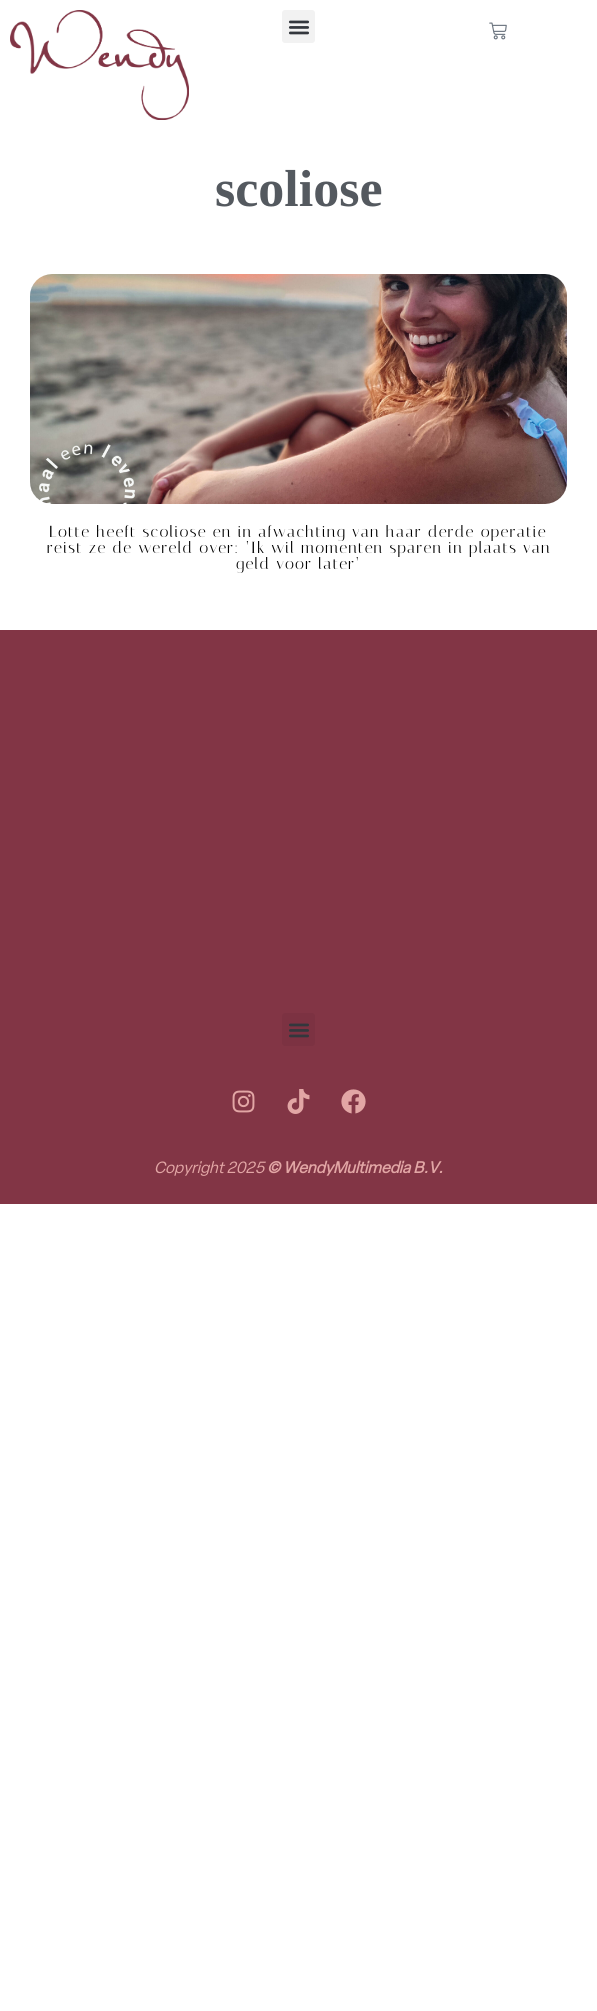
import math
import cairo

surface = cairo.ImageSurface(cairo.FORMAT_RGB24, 597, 2011)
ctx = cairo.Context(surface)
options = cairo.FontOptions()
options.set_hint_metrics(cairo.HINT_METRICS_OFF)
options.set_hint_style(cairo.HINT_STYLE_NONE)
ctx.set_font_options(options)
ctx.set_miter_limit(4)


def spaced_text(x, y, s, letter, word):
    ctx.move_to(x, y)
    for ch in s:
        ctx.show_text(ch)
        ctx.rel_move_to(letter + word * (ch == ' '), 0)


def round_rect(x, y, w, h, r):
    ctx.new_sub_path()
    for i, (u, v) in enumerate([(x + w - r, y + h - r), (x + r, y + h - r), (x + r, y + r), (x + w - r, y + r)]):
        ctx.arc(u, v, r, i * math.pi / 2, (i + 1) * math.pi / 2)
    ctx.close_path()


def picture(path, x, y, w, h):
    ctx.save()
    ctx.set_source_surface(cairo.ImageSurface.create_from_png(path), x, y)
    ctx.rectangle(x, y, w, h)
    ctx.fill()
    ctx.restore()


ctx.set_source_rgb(1, 1, 1)
ctx.paint()
picture("img1.png", 10, 10, 179, 110)
ctx.set_source_rgb(0.949, 0.949, 0.949)
round_rect(282, 10, 33, 33, 3)
ctx.fill()
picture("img2.png", 288, 20, 22, 15)
picture("img3.png", 489, 22, 18, 18)
ctx.select_font_face("Liberation Serif", cairo.FONT_SLANT_NORMAL, cairo.FONT_WEIGHT_BOLD)
ctx.set_font_size(52)
ctx.set_source_rgb(0.329, 0.349, 0.373)
ctx.move_to(215, 206)
ctx.show_text("scoliose")
picture("img4.png", 30, 274, 537, 230)
ctx.select_font_face("Italiana")
ctx.set_font_size(16)
ctx.set_source_rgb(0, 0, 0)
spaced_text(49, 537, "Lotte heeft scoliose en in afwachting van haar derde operatie", 1.2, 0)
spaced_text(47, 553, "reist ze de wereld over: ‘Ik wil momenten sparen in plaats van", 1.2, 0)
spaced_text(236, 569, "geld voor later’", 1.2, 0)
ctx.set_source_rgb(0.51, 0.208, 0.271)
ctx.rectangle(0, 630, 597, 574)
ctx.fill()
ctx.set_source_rgb(0.486, 0.196, 0.259)
round_rect(282, 1013, 33, 33, 3)
ctx.fill()
picture("img5.png", 289, 1023, 20, 15)
picture("img6.png", 232, 1090, 23, 23)
picture("img7.png", 287, 1089, 23, 25)
picture("img8.png", 341, 1089, 25, 25)
ctx.select_font_face("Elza", cairo.FONT_SLANT_ITALIC)
ctx.set_source_rgb(0.886, 0.651, 0.647)
ctx.move_to(154, 1173)
ctx.show_text("Copyright 2025")
ctx.select_font_face("Elza", cairo.FONT_SLANT_ITALIC, cairo.FONT_WEIGHT_BOLD)
ctx.move_to(267, 1173)
ctx.show_text("© WendyMultimedia B.V.")
surface.write_to_png("page.png")
